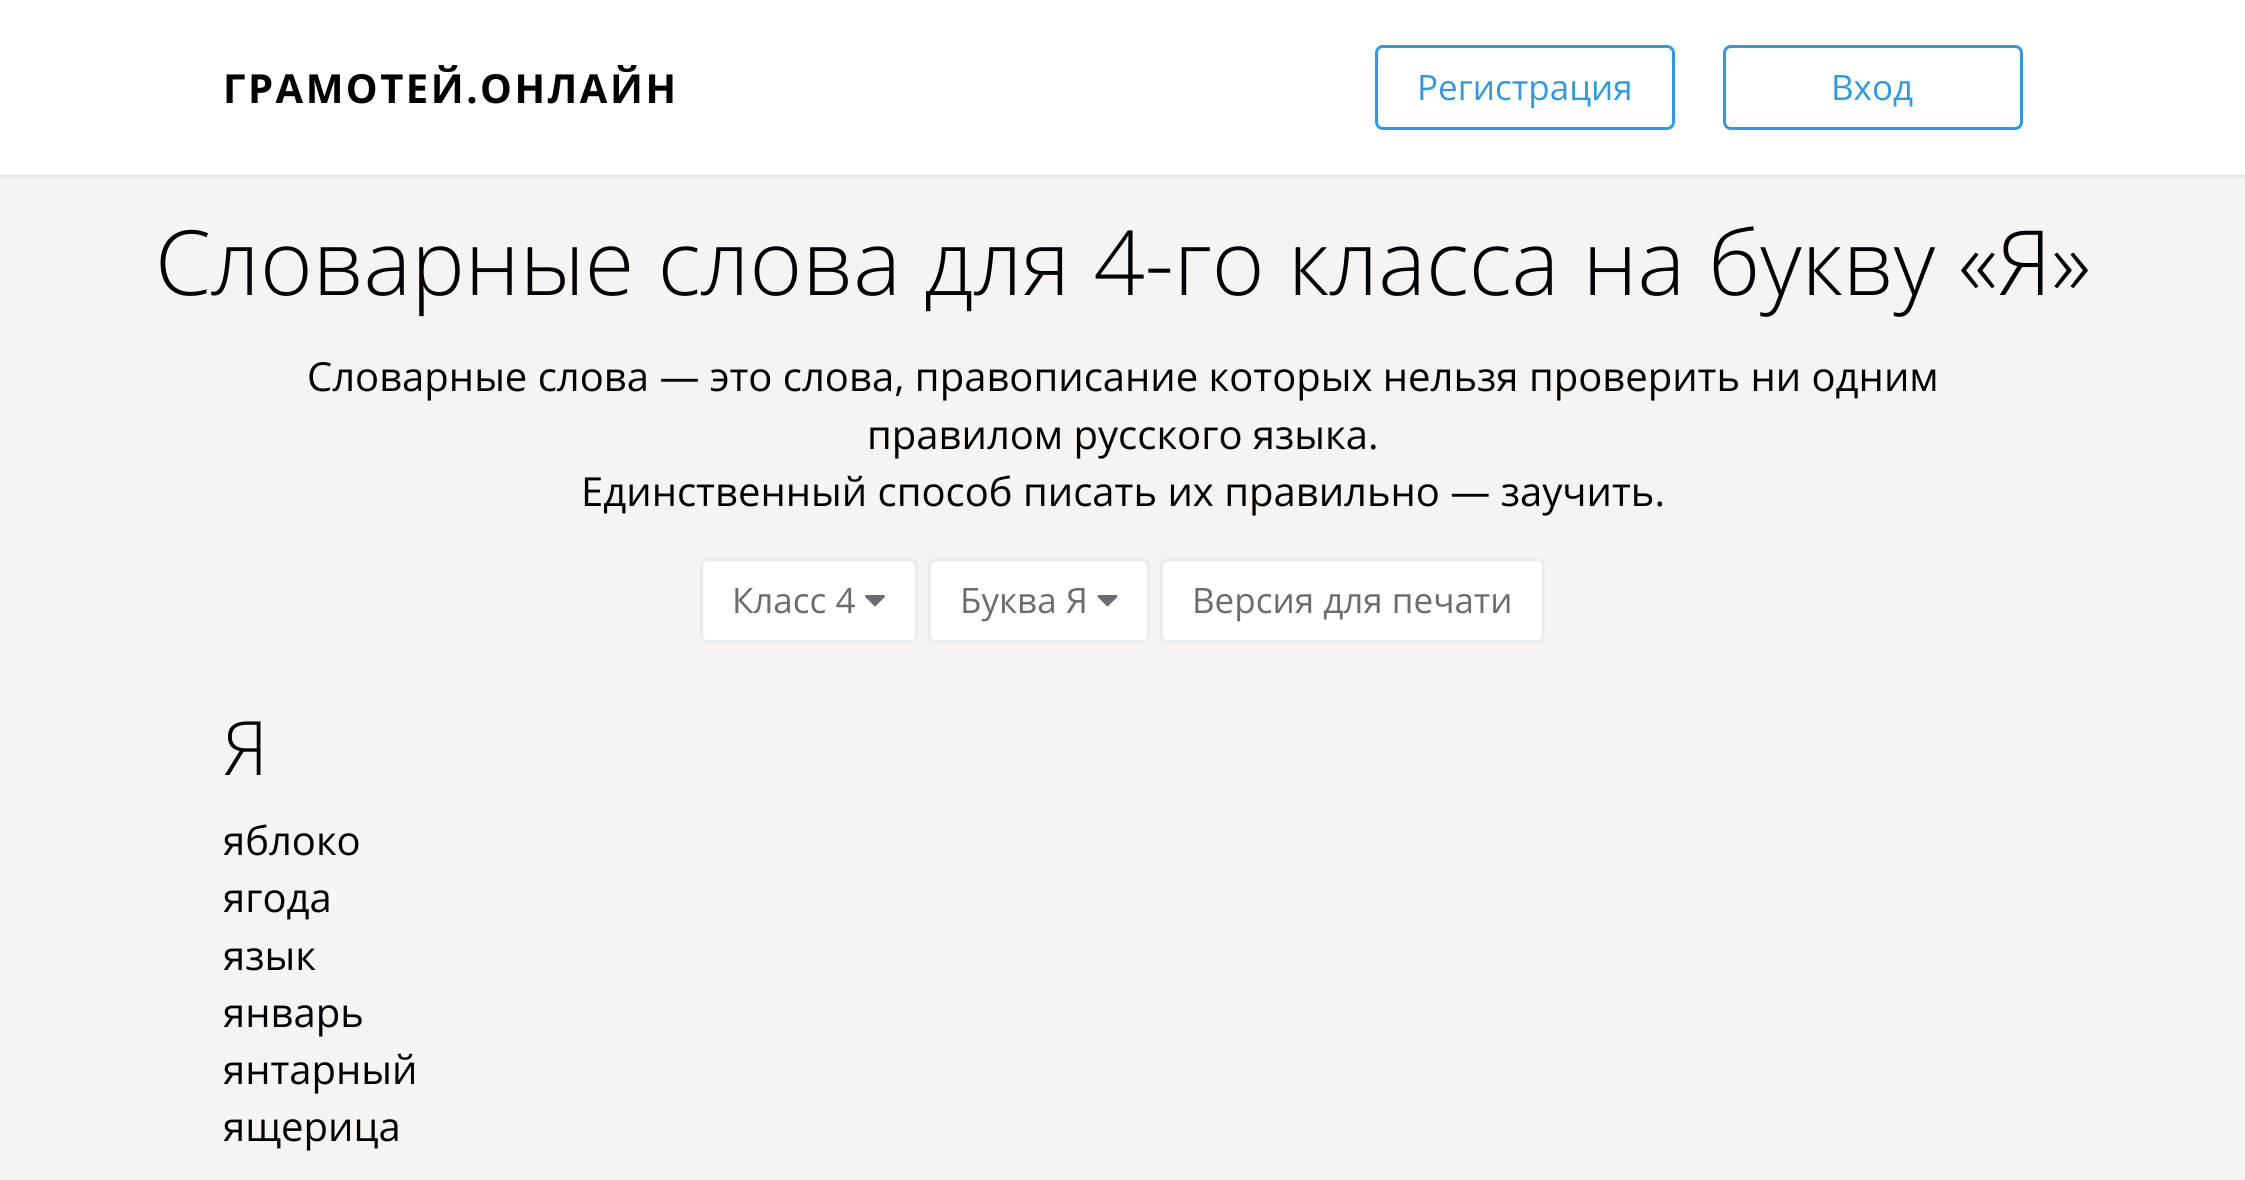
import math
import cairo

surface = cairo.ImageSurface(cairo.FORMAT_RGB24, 2245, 1180)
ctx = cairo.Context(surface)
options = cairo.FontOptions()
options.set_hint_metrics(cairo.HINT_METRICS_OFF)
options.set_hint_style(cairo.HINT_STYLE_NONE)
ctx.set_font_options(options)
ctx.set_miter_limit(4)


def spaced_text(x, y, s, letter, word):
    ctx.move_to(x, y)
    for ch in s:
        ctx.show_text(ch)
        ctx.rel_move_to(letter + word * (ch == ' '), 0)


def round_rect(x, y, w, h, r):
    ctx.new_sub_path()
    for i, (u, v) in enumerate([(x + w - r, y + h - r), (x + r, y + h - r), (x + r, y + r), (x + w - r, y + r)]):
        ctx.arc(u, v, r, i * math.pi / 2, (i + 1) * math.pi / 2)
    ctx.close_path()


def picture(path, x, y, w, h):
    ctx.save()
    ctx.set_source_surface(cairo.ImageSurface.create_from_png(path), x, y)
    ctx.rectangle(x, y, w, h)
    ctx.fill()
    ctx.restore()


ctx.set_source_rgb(0.961, 0.953, 0.945)
ctx.paint()
ctx.set_source_rgb(1, 1, 1)
ctx.rectangle(0, 0, 2245, 175)
ctx.fill()
ctx.set_source_rgb(0.91, 0.91, 0.91)
ctx.rectangle(0, 175, 2245, 3)
ctx.fill()
ctx.select_font_face("Open Sans", cairo.FONT_SLANT_NORMAL, cairo.FONT_WEIGHT_BOLD)
ctx.set_font_size(40)
ctx.set_source_rgb(0, 0, 0)
spaced_text(223, 103, "ГРАМОТЕЙ.ОНЛАЙН", 2.5, 0)
round_rect(1376.5, 46.5, 297, 82, 6.5)
ctx.set_source_rgb(0.204, 0.596, 0.859)
ctx.set_line_width(3)
ctx.stroke()
ctx.select_font_face("Open Sans")
ctx.set_font_size(35)
ctx.move_to(1417, 100)
ctx.show_text("Регистрация")
round_rect(1724.5, 46.5, 297, 82, 6.5)
ctx.stroke()
ctx.move_to(1831, 100)
ctx.show_text("Вход")
ctx.select_font_face("Open Sans Light")
ctx.set_font_size(90)
ctx.set_source_rgb(0, 0, 0)
ctx.move_to(155, 295)
ctx.show_text("Словарные слова для 4-го класса на букву «Я»")
ctx.select_font_face("Open Sans")
ctx.set_font_size(40)
ctx.move_to(307, 391)
ctx.show_text("Словарные слова — это слова, пpaвoпиcaниe кoтopыx нельзя проверить ни oдним")
ctx.move_to(867, 449)
ctx.show_text("пpaвилом pyccкoгo языкa.")
ctx.move_to(581, 506)
ctx.show_text("Единственный способ писать их правильно — заучить.")
ctx.set_source_rgb(1, 1, 1)
round_rect(701.5, 559.5, 215, 82, 6.5)
ctx.fill_preserve()
ctx.set_source_rgb(0.918, 0.918, 0.918)
ctx.stroke()
ctx.set_font_size(35)
ctx.set_source_rgb(0.416, 0.424, 0.435)
ctx.move_to(732, 613)
ctx.show_text("Класс 4")
picture("img1.png", 865, 595, 20, 12)
ctx.set_source_rgb(1, 1, 1)
round_rect(929.5, 559.5, 219, 82, 6.5)
ctx.fill_preserve()
ctx.set_source_rgb(0.918, 0.918, 0.918)
ctx.stroke()
ctx.set_source_rgb(0.416, 0.424, 0.435)
ctx.move_to(960, 613)
ctx.show_text("Буква Я")
picture("img2.png", 1097, 595, 21, 12)
ctx.set_source_rgb(1, 1, 1)
round_rect(1161.5, 559.5, 382, 82, 6.5)
ctx.fill_preserve()
ctx.set_source_rgb(0.918, 0.918, 0.918)
ctx.stroke()
ctx.set_source_rgb(0.416, 0.424, 0.435)
ctx.move_to(1192, 613)
ctx.show_text("Версия для печати")
ctx.select_font_face("Open Sans Light")
ctx.set_font_size(75)
ctx.set_source_rgb(0, 0, 0)
ctx.move_to(223, 775)
ctx.show_text("Я")
ctx.select_font_face("Open Sans")
ctx.set_font_size(40)
ctx.move_to(223, 855)
ctx.show_text("яблоко")
ctx.move_to(223, 912)
ctx.show_text("ягода")
ctx.move_to(223, 970)
ctx.show_text("язык")
ctx.move_to(223, 1027)
ctx.show_text("январь")
ctx.move_to(223, 1084)
ctx.show_text("янтарный")
ctx.move_to(223, 1141)
ctx.show_text("ящерица")
surface.write_to_png("page.png")
